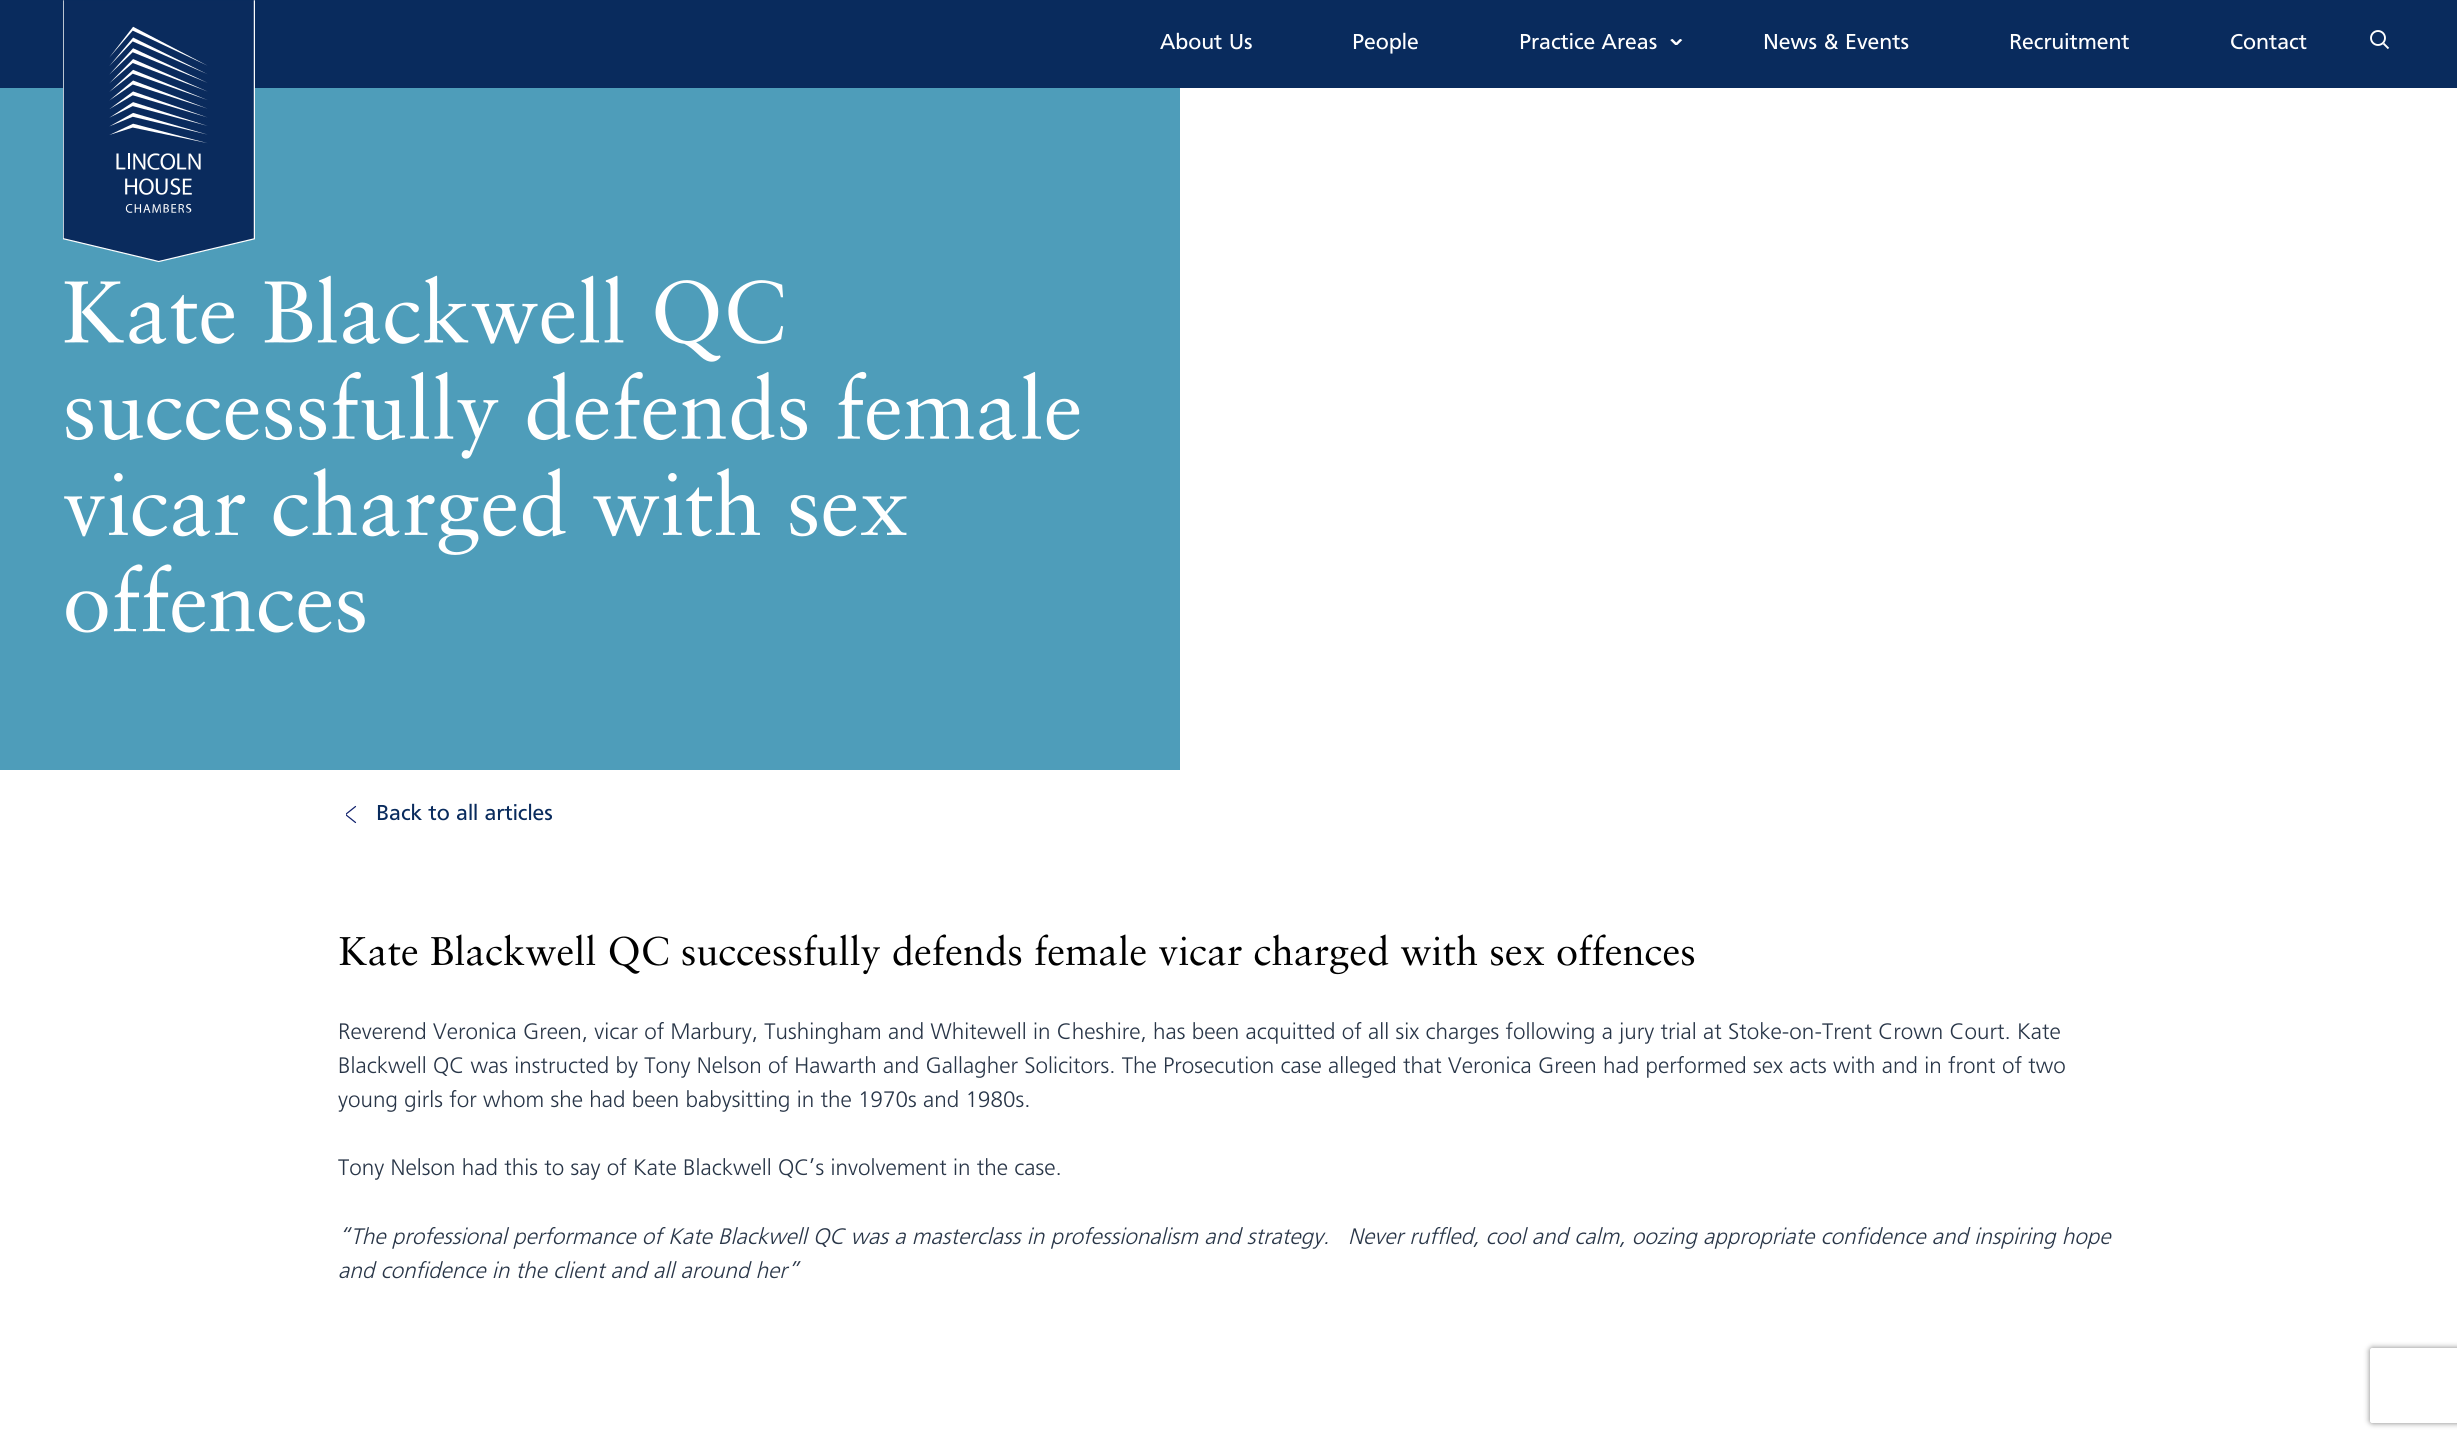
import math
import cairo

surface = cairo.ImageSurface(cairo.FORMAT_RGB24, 2457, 1439)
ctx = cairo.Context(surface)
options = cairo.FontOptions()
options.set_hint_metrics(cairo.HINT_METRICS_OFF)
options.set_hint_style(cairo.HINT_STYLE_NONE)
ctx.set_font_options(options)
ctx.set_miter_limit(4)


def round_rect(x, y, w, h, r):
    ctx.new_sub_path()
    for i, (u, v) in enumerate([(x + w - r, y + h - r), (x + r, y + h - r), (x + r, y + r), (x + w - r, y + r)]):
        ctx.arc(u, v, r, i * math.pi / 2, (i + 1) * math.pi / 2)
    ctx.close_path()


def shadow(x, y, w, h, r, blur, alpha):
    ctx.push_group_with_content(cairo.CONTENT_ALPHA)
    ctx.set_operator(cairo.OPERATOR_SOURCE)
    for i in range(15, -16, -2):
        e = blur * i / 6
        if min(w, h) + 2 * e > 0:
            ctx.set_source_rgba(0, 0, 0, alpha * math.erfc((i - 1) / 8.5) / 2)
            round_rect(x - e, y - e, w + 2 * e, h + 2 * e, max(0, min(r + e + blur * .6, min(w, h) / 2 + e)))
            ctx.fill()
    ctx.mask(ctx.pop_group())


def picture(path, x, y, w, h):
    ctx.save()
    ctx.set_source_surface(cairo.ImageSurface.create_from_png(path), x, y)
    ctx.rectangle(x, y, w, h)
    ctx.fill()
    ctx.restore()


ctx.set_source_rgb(1, 1, 1)
ctx.paint()
ctx.set_source_rgb(0.039, 0.169, 0.365)
ctx.rectangle(0, 0, 2457, 88)
ctx.fill()
ctx.set_source_rgb(0.306, 0.616, 0.729)
ctx.rectangle(0, 88, 1180, 682)
ctx.fill()
picture("img1.png", 63, 0, 192, 263)
ctx.select_font_face("Frutiger")
ctx.set_font_size(22.5)
ctx.set_source_rgb(1, 1, 1)
ctx.move_to(1160, 49)
ctx.show_text("About Us")
ctx.move_to(1352, 49)
ctx.show_text("People")
ctx.move_to(1519, 49)
ctx.show_text("Practice Areas")
picture("img2.png", 1670, 39, 13, 6)
ctx.move_to(1763, 49)
ctx.show_text("News & Events")
ctx.move_to(2009, 49)
ctx.show_text("Recruitment")
ctx.move_to(2230, 49)
ctx.show_text("Contact")
ctx.new_path()
ctx.move_to(2383.5, 43.5)
ctx.line_to(2388.5, 48.5)
ctx.set_line_width(1.9)
ctx.stroke()
ctx.arc(2378, 38, 7, 0, 2 * math.pi)
ctx.stroke()
picture("img3.png", 64, 275, 720, 87)
picture("img4.png", 66, 371, 1014, 88)
picture("img5.png", 64, 468, 843, 87)
picture("img6.png", 66, 564, 299, 69)
ctx.save()
ctx.rectangle(346, 805, 12, 19)
ctx.clip()
ctx.new_path()
ctx.move_to(355.5, 822.5)
ctx.line_to(345.5, 814.5)
ctx.line_to(355.5, 806.5)
ctx.set_source_rgb(0.059, 0.125, 0.424)
ctx.set_line_width(1.2)
ctx.set_line_cap(cairo.LINE_CAP_ROUND)
ctx.set_line_join(cairo.LINE_JOIN_ROUND)
ctx.stroke()
ctx.restore()
ctx.set_source_rgb(0.039, 0.169, 0.365)
ctx.move_to(376, 820)
ctx.show_text("Back to all articles")
picture("img7.png", 339, 934, 1356, 41)
ctx.select_font_face("Frutiger Light")
ctx.set_source_rgb(0.161, 0.212, 0.282)
ctx.move_to(338, 1039)
ctx.show_text("Reverend Veronica Green, vicar of Marbury, Tushingham and Whitewell in Cheshire, has been acquitted of all six charges following a jury trial at Stoke-on-Trent Crown Court. Kate")
ctx.move_to(338, 1073)
ctx.show_text("Blackwell QC was instructed by Tony Nelson of Hawarth and Gallagher Solicitors. The Prosecution case alleged that Veronica Green had performed sex acts with and in front of two")
ctx.move_to(338, 1107)
ctx.show_text("young girls for whom she had been babysitting in the 1970s and 1980s.")
ctx.move_to(338, 1175)
ctx.show_text("Tony Nelson had this to say of Kate Blackwell QC’s involvement in the case.")
ctx.select_font_face("Frutiger Light", cairo.FONT_SLANT_ITALIC)
ctx.move_to(338, 1244)
ctx.show_text("“The professional performance of Kate Blackwell QC was a masterclass in professionalism and strategy.")
ctx.move_to(1348, 1244)
ctx.show_text("Never ruffled, cool and calm, oozing appropriate confidence and inspiring hope")
ctx.move_to(338, 1278)
ctx.show_text("and confidence in the client and all around her”")
ctx.save()
ctx.set_fill_rule(cairo.FILL_RULE_EVEN_ODD)
ctx.new_path()
ctx.move_to(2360, 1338)
ctx.line_to(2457, 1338)
ctx.line_to(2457, 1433)
ctx.line_to(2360, 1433)
ctx.close_path()
ctx.move_to(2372.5, 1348)
ctx.line_to(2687.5, 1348)
ctx.curve_to(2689, 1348, 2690, 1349, 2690, 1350.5)
ctx.line_to(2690, 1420.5)
ctx.curve_to(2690, 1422, 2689, 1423, 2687.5, 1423)
ctx.line_to(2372.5, 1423)
ctx.curve_to(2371, 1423, 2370, 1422, 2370, 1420.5)
ctx.line_to(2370, 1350.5)
ctx.curve_to(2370, 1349, 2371, 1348, 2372.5, 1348)
ctx.close_path()
ctx.clip()
ctx.set_source_rgb(0.502, 0.502, 0.502)
shadow(2370, 1348, 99, 75, 2.5, 3, 1)
ctx.restore()
surface.write_to_png("page.png")
